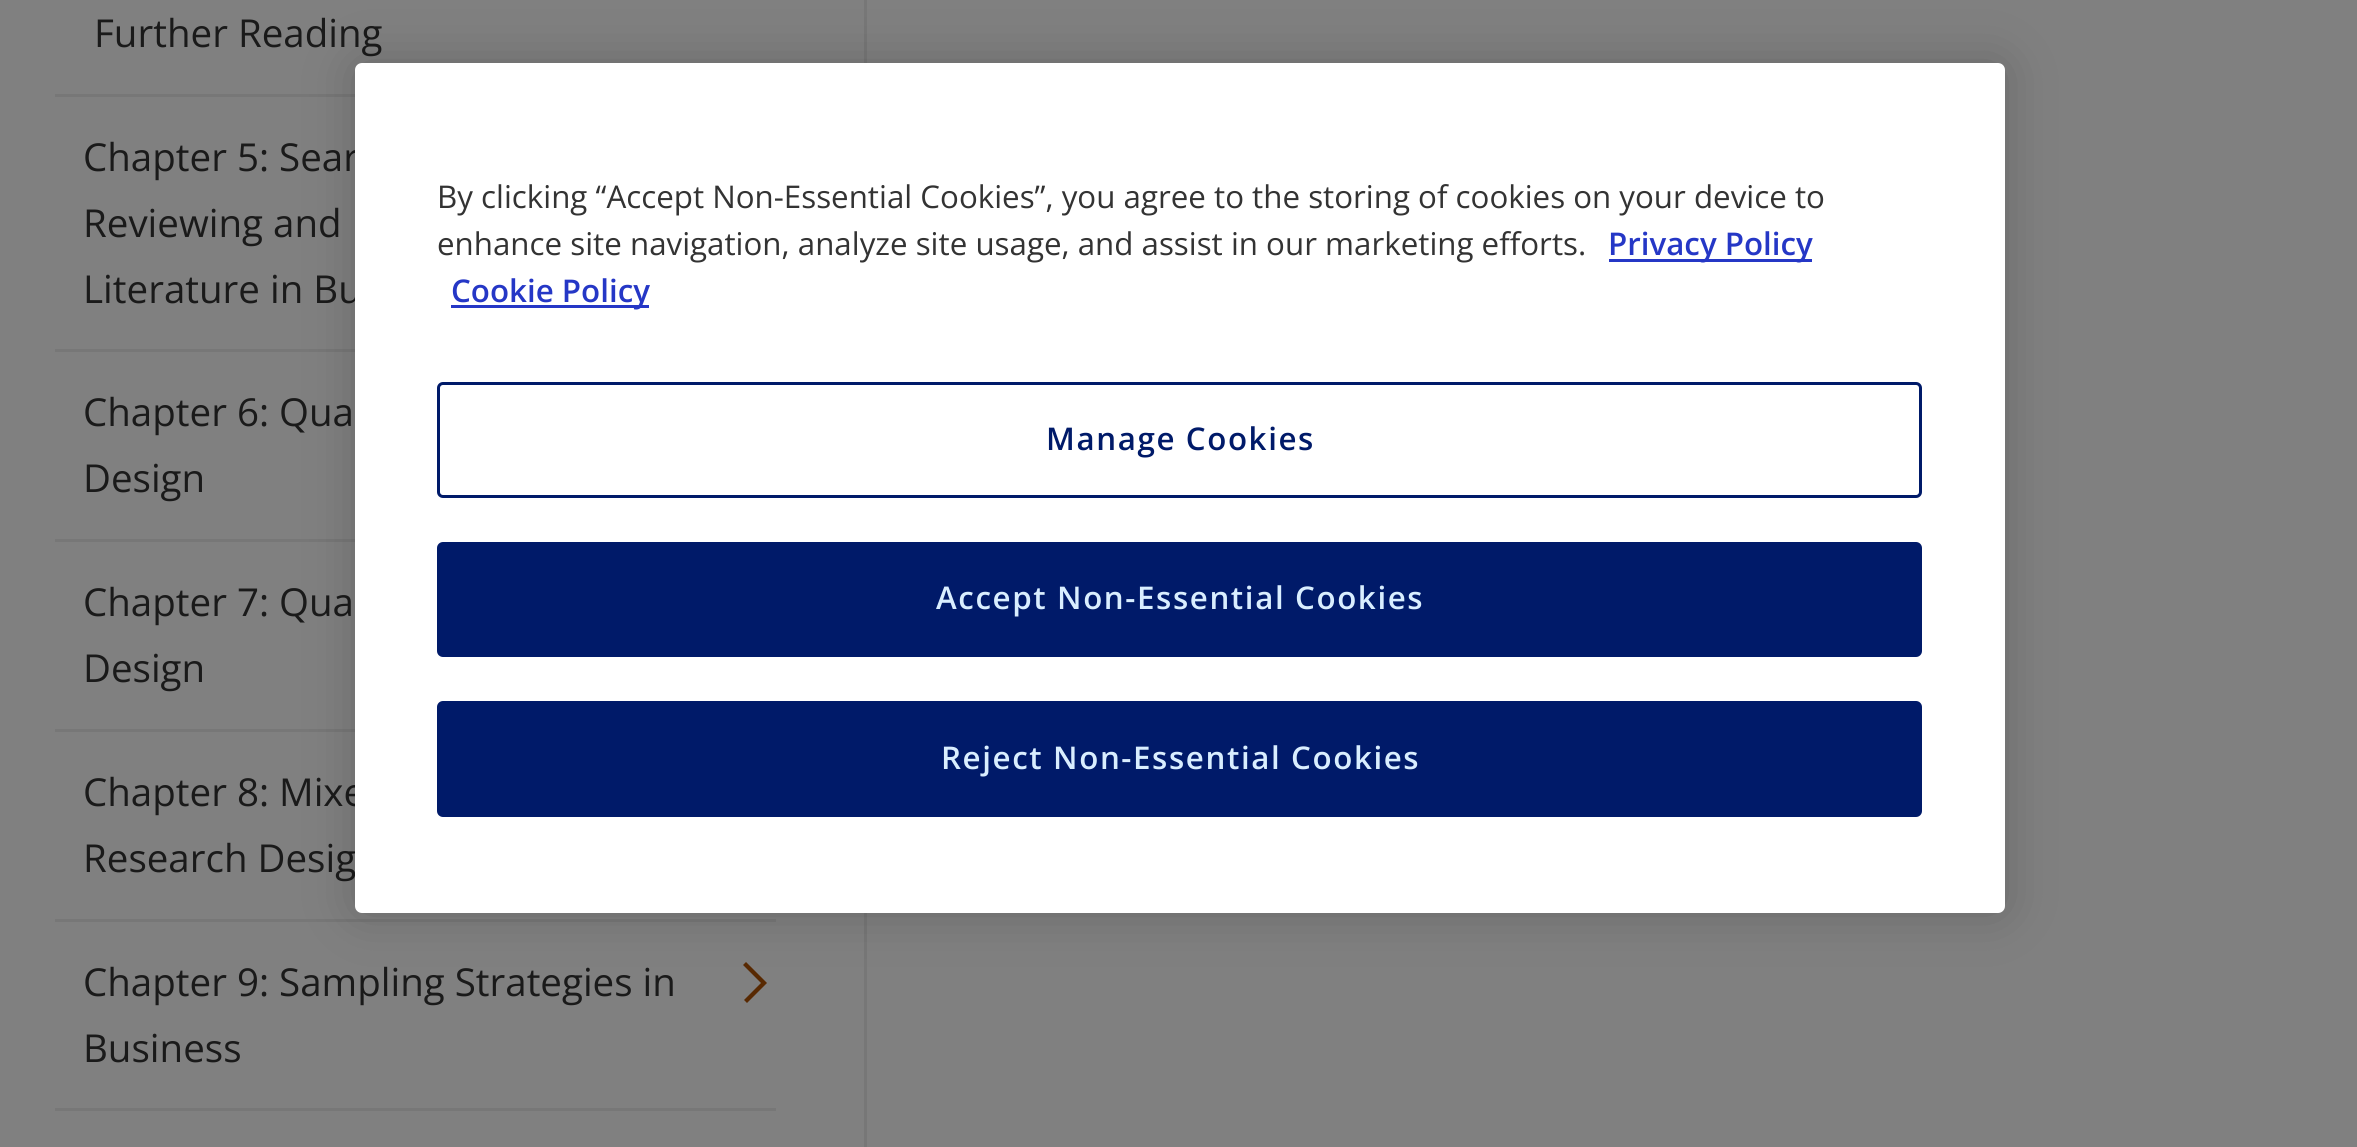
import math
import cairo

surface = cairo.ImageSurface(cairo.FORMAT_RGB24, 2357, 1147)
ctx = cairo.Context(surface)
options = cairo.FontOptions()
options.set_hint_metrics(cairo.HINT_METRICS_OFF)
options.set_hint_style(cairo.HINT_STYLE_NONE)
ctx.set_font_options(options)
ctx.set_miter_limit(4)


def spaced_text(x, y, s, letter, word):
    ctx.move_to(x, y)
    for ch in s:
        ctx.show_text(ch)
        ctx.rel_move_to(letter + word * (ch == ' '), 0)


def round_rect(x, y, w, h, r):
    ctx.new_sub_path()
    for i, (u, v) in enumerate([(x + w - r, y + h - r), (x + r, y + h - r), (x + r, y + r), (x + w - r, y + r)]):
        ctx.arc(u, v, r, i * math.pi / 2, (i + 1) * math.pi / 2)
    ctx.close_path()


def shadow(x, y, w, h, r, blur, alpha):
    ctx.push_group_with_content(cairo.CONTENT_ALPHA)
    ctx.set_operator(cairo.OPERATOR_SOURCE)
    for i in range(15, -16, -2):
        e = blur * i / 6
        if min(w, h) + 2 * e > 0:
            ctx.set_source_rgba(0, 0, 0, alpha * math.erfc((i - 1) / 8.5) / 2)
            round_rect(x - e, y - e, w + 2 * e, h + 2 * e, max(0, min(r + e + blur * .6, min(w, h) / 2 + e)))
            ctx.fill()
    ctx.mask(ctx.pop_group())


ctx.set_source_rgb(0.502, 0.502, 0.502)
ctx.paint()
ctx.set_source_rgb(0.467, 0.467, 0.467)
ctx.rectangle(55, 94, 300, 3)
ctx.fill()
ctx.select_font_face("Open Sans")
ctx.set_font_size(38.5)
ctx.set_source_rgb(0.102, 0.102, 0.102)
ctx.move_to(94, 47)
ctx.show_text("Further Reading")
ctx.set_source_rgb(0.467, 0.467, 0.467)
ctx.rectangle(55, 349, 300, 3)
ctx.fill()
ctx.set_source_rgb(0.102, 0.102, 0.102)
ctx.move_to(83, 171)
ctx.show_text("Chapter 5: Sear")
ctx.move_to(83, 237)
ctx.show_text("Reviewing and")
ctx.move_to(83, 303)
ctx.show_text("Literature in Bu")
ctx.set_source_rgb(0.467, 0.467, 0.467)
ctx.rectangle(55, 539, 300, 3)
ctx.fill()
ctx.set_source_rgb(0.102, 0.102, 0.102)
ctx.move_to(83, 426)
ctx.show_text("Chapter 6: Qua")
ctx.move_to(83, 492)
ctx.show_text("Design")
ctx.set_source_rgb(0.467, 0.467, 0.467)
ctx.rectangle(55, 729, 300, 3)
ctx.fill()
ctx.set_source_rgb(0.102, 0.102, 0.102)
ctx.move_to(83, 616)
ctx.show_text("Chapter 7: Qua")
ctx.move_to(83, 682)
ctx.show_text("Design")
ctx.set_source_rgb(0.467, 0.467, 0.467)
ctx.rectangle(55, 919, 721, 3)
ctx.fill()
ctx.set_source_rgb(0.102, 0.102, 0.102)
ctx.move_to(83, 806)
ctx.show_text("Chapter 8: Mixe")
ctx.move_to(83, 872)
ctx.show_text("Research Desig")
ctx.set_source_rgb(0.467, 0.467, 0.467)
ctx.rectangle(55, 1108, 721, 3)
ctx.fill()
ctx.set_source_rgb(0.102, 0.102, 0.102)
ctx.move_to(83, 996)
ctx.show_text("Chapter 9: Sampling Strategies in")
ctx.move_to(83, 1062)
ctx.show_text("Business")
ctx.set_source_rgb(0.345, 0.161, 0.008)
ctx.new_path()
ctx.move_to(746, 962)
ctx.line_to(743, 965)
ctx.line_to(761, 983)
ctx.line_to(744, 1000)
ctx.line_to(747, 1003)
ctx.line_to(767, 983)
ctx.close_path()
ctx.fill()
ctx.set_source_rgb(0.467, 0.467, 0.467)
ctx.rectangle(864, 0, 3, 1147)
ctx.fill()
ctx.set_source_rgb(0, 0, 0)
shadow(355, 63, 1650, 850, 7, 25, 0.2)
ctx.set_source_rgb(1, 1, 1)
round_rect(355, 63, 1650, 850, 7)
ctx.fill()
ctx.set_font_size(31.3)
ctx.set_source_rgb(0.2, 0.2, 0.2)
ctx.move_to(437, 208)
ctx.show_text("By clicking “Accept Non-Essential Cookies”, you agree to the storing of cookies on your device to")
ctx.move_to(437, 255)
ctx.show_text("enhance site navigation, analyze site usage, and assist in our marketing efforts.")
ctx.set_source_rgb(0.145, 0.216, 0.776)
ctx.rectangle(1609, 259, 203, 3)
ctx.fill()
ctx.select_font_face("Open Sans SemiBold")
ctx.move_to(1608, 255)
ctx.show_text("Privacy Policy")
ctx.rectangle(451, 305, 198, 3)
ctx.fill()
ctx.move_to(451, 302)
ctx.show_text("Cookie Policy")
round_rect(438.5, 383.5, 1482, 113, 4.5)
ctx.set_source_rgb(0, 0.102, 0.412)
ctx.set_line_width(3)
ctx.stroke()
spaced_text(1046, 450, "Manage Cookies", 1.6, 0)
round_rect(438.5, 543.5, 1482, 112, 4.5)
ctx.fill_preserve()
ctx.stroke()
ctx.set_source_rgb(0.851, 0.933, 1)
spaced_text(936, 609, "Accept Non-Essential Cookies", 1.6, 0)
ctx.set_source_rgb(0, 0.102, 0.412)
round_rect(438.5, 702.5, 1482, 113, 4.5)
ctx.fill_preserve()
ctx.stroke()
ctx.set_source_rgb(0.851, 0.933, 1)
spaced_text(941, 769, "Reject Non-Essential Cookies", 1.6, 0)
surface.write_to_png("page.png")
